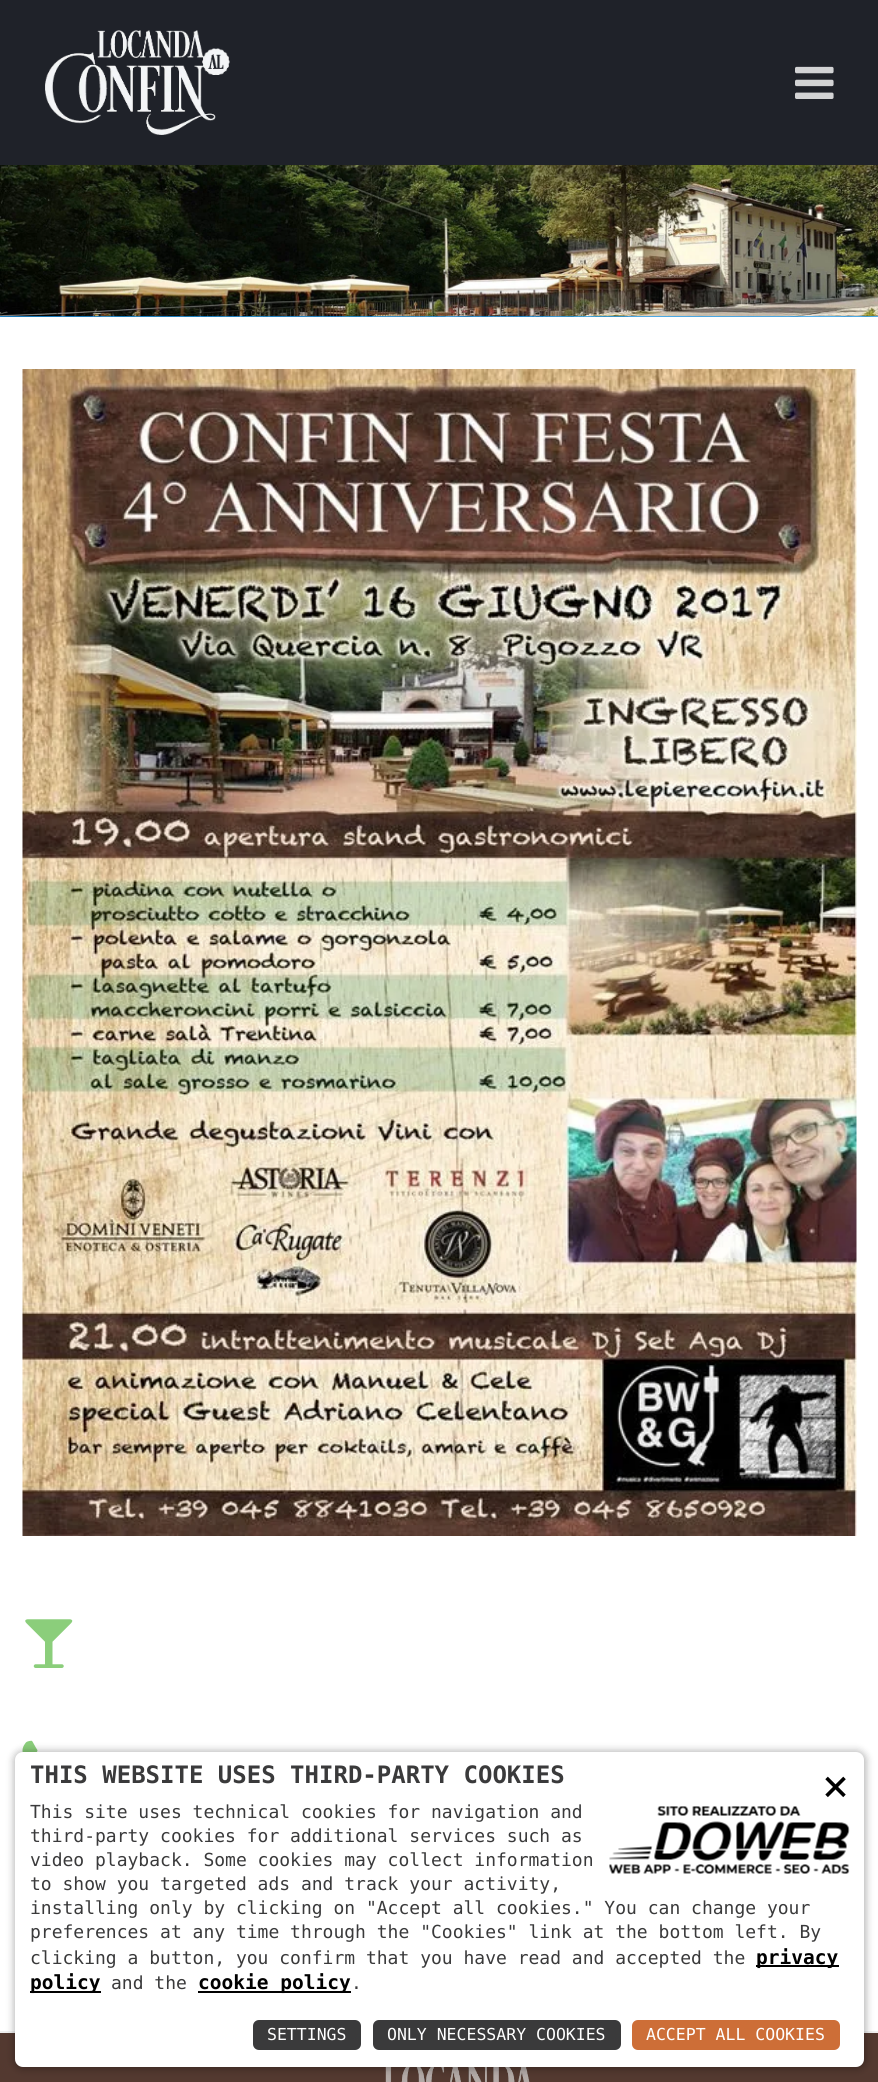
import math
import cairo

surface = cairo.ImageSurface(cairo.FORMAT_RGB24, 878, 2082)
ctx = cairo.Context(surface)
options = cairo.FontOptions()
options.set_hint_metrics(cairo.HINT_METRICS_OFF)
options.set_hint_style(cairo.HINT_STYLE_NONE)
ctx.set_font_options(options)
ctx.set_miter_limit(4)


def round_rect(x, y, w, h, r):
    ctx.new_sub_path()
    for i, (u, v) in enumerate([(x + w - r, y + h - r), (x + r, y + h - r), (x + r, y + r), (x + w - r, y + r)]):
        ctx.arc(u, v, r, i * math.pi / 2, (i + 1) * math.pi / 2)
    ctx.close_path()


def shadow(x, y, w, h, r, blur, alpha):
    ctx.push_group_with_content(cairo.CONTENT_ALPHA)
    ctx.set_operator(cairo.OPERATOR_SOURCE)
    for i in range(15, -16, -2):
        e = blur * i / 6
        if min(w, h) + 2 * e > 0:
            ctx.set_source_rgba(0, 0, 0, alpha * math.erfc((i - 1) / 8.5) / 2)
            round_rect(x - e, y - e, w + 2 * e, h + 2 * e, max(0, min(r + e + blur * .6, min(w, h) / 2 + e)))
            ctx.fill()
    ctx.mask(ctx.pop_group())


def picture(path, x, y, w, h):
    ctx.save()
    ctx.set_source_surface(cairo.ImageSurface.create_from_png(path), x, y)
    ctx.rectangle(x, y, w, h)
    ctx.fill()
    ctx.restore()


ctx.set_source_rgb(1, 1, 1)
ctx.paint()
ctx.set_source_rgb(0.122, 0.133, 0.161)
ctx.rectangle(0, 0, 878, 165)
ctx.fill()
picture("img1.png", 45, 30, 185, 105)
picture("img2.png", 795, 66, 39, 33)
ctx.set_source_rgb(0.122, 0.616, 0.953)
ctx.rectangle(0, 316, 878, 1)
ctx.fill()
picture("img3.png", 0, 165, 878, 152)
ctx.set_source_rgb(0.941, 0.941, 0.941)
ctx.rectangle(0, 2031, 878, 2)
ctx.fill()
picture("img4.png", 22, 369, 835, 1167)
picture("img5.png", 25, 1619, 48, 49)
picture("img6.png", 22, 1740, 16, 13)
ctx.set_source_rgb(0.325, 0.224, 0.188)
ctx.rectangle(0, 2033, 878, 49)
ctx.fill()
picture("img7.png", 385, 2067, 145, 15)
ctx.set_source_rgb(0, 0, 0)
shadow(14, 1751, 852, 318, 9, 4, 0.3)
ctx.set_source_rgb(1, 1, 1)
round_rect(15, 1752, 849, 315, 8)
ctx.fill()
ctx.select_font_face("DejaVu Sans Mono", cairo.FONT_SLANT_NORMAL, cairo.FONT_WEIGHT_BOLD)
ctx.set_font_size(24)
ctx.set_source_rgb(0.227, 0.227, 0.231)
ctx.move_to(30, 1783)
ctx.show_text("THIS WEBSITE USES THIRD-PARTY COOKIES")
ctx.select_font_face("DejaVu Sans Mono")
ctx.set_font_size(45)
ctx.set_source_rgb(0, 0, 0)
ctx.move_to(822, 1801)
ctx.show_text("×")
ctx.set_font_size(18)
ctx.set_source_rgb(0.227, 0.227, 0.231)
ctx.move_to(30, 1818)
ctx.show_text("This site uses technical cookies for navigation and")
picture("img8.png", 609, 1806, 241, 68)
ctx.move_to(30, 1842)
ctx.show_text("third-party cookies for additional services such as")
ctx.move_to(30, 1866)
ctx.show_text("video playback. Some cookies may collect information")
ctx.move_to(30, 1890)
ctx.show_text("to show you targeted ads and track your activity,")
ctx.move_to(30, 1914)
ctx.show_text("installing only by clicking on \"Accept all cookies.\" You can change your")
ctx.move_to(30, 1938)
ctx.show_text("preferences at any time through the \"Cookies\" link at the bottom left. By")
ctx.move_to(30, 1964)
ctx.show_text("clicking a button, you confirm that you have read and accepted the")
ctx.set_source_rgb(0, 0, 0)
ctx.rectangle(756, 1965, 83, 2)
ctx.fill()
ctx.select_font_face("DejaVu Sans Mono", cairo.FONT_SLANT_NORMAL, cairo.FONT_WEIGHT_BOLD)
ctx.set_font_size(19.5)
ctx.move_to(756, 1964)
ctx.show_text("privacy")
ctx.rectangle(30, 1991, 71, 2)
ctx.fill()
ctx.move_to(30, 1989)
ctx.show_text("policy")
ctx.select_font_face("DejaVu Sans Mono")
ctx.set_font_size(18)
ctx.set_source_rgb(0.227, 0.227, 0.231)
ctx.move_to(111, 1989)
ctx.show_text("and the")
ctx.set_source_rgb(0, 0, 0)
ctx.rectangle(198, 1991, 153, 2)
ctx.fill()
ctx.select_font_face("DejaVu Sans Mono", cairo.FONT_SLANT_NORMAL, cairo.FONT_WEIGHT_BOLD)
ctx.set_font_size(19.5)
ctx.move_to(198, 1989)
ctx.show_text("cookie policy")
ctx.select_font_face("DejaVu Sans Mono")
ctx.set_font_size(18)
ctx.set_source_rgb(0.227, 0.227, 0.231)
ctx.move_to(351, 1989)
ctx.show_text(".")
round_rect(252, 2019, 110, 32, 7)
ctx.fill_preserve()
ctx.set_source_rgb(1, 1, 1)
ctx.stroke()
ctx.set_font_size(16.5)
ctx.move_to(267, 2040)
ctx.show_text("SETTINGS")
ctx.set_source_rgb(0.227, 0.227, 0.231)
round_rect(372, 2019, 250, 32, 7)
ctx.fill_preserve()
ctx.set_source_rgb(1, 1, 1)
ctx.stroke()
ctx.move_to(387, 2040)
ctx.show_text("ONLY NECESSARY COOKIES")
ctx.set_source_rgb(0.804, 0.431, 0.216)
round_rect(631, 2019, 210, 32, 7)
ctx.fill_preserve()
ctx.set_source_rgb(1, 1, 1)
ctx.stroke()
ctx.move_to(646, 2040)
ctx.show_text("ACCEPT ALL COOKIES")
surface.write_to_png("page.png")
